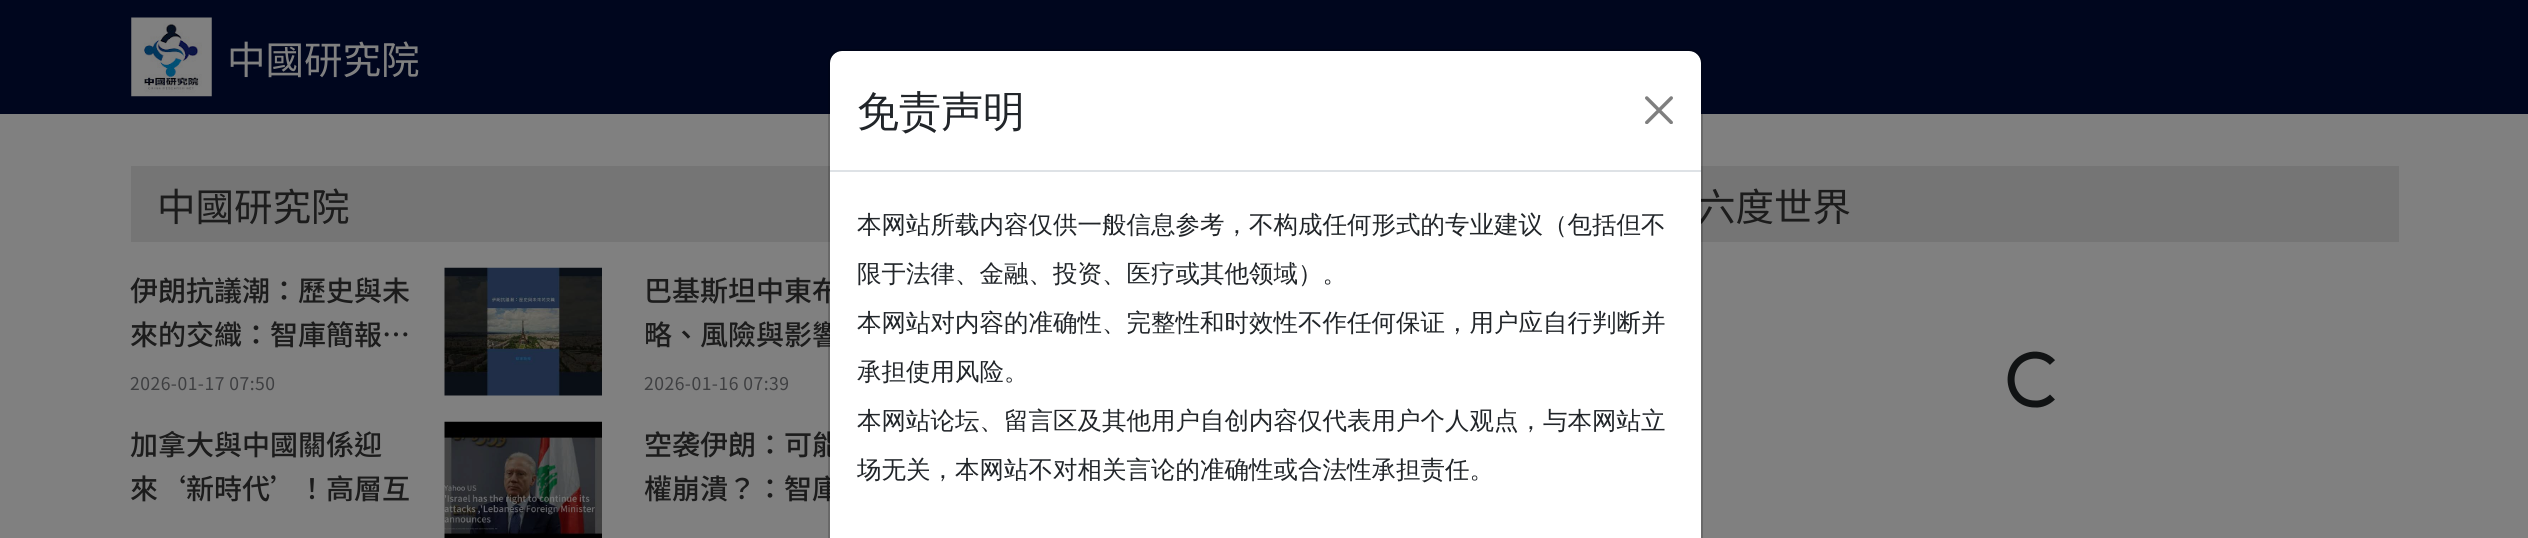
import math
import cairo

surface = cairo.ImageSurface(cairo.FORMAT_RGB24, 2528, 538)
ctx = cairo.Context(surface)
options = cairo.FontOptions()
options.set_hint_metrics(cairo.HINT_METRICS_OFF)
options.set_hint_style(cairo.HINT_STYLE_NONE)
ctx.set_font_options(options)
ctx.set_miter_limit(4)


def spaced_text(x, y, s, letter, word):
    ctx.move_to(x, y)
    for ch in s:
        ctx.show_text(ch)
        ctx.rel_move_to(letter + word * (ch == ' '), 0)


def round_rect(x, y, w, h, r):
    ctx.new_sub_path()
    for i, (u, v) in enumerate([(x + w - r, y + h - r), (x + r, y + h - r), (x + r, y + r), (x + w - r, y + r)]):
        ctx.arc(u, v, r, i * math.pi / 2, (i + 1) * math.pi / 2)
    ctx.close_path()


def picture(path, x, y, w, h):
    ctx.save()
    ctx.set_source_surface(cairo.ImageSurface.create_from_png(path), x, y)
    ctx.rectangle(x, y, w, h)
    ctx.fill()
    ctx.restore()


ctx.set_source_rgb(0.502, 0.502, 0.502)
ctx.paint()
ctx.set_source_rgb(0, 0.027, 0.118)
ctx.rectangle(0, 0, 2528, 114)
ctx.fill()
picture("img1.png", 131, 17, 81, 80)
ctx.select_font_face("Noto Sans TC")
ctx.set_font_size(38.5)
ctx.set_source_rgb(0.502, 0.502, 0.502)
ctx.move_to(227, 74)
ctx.show_text("中國研究院")
ctx.set_source_rgb(0.459, 0.459, 0.459)
ctx.rectangle(131, 166, 699, 76)
ctx.fill()
ctx.set_source_rgb(0.11, 0.11, 0.11)
ctx.move_to(157, 221)
ctx.show_text("中國研究院")
ctx.select_font_face("Noto Sans TC Medium")
ctx.set_font_size(28)
ctx.move_to(130, 301)
ctx.show_text("伊朗抗議潮：歷史與未")
ctx.move_to(130, 345)
ctx.show_text("來的交織：智庫簡報…")
ctx.select_font_face("Noto Sans TC")
ctx.set_font_size(17.5)
ctx.set_source_rgb(0.243, 0.247, 0.255)
spaced_text(130, 390, "2026-01-17 07:50", 0.5, 0)
picture("img2.png", 444, 267, 158, 129)
ctx.select_font_face("Noto Sans TC Medium")
ctx.set_font_size(28)
ctx.set_source_rgb(0.11, 0.11, 0.11)
ctx.move_to(644, 301)
ctx.show_text("巴基斯坦中東布")
ctx.move_to(644, 345)
ctx.show_text("略、風險與影響")
ctx.select_font_face("Noto Sans TC")
ctx.set_font_size(17.5)
ctx.set_source_rgb(0.243, 0.247, 0.255)
spaced_text(644, 390, "2026-01-16 07:39", 0.5, 0)
ctx.select_font_face("Noto Sans TC Medium")
ctx.set_font_size(28)
ctx.set_source_rgb(0.11, 0.11, 0.11)
ctx.move_to(130, 455)
ctx.show_text("加拿大與中國關係迎")
ctx.move_to(130, 499)
ctx.show_text("來‘新時代’！高層互")
picture("img3.png", 444, 421, 158, 117)
ctx.move_to(644, 455)
ctx.show_text("空")
ctx.select_font_face("Noto Sans SC Medium")
ctx.move_to(672, 455)
ctx.show_text("袭伊")
ctx.select_font_face("Noto Sans TC Medium")
ctx.move_to(728, 455)
ctx.show_text("朗：可能")
ctx.move_to(644, 499)
ctx.show_text("權崩潰？：智庫")
ctx.set_source_rgb(0.459, 0.459, 0.459)
ctx.rectangle(1701, 166, 698, 76)
ctx.fill()
ctx.select_font_face("Noto Sans TC")
ctx.set_font_size(38.5)
ctx.set_source_rgb(0.11, 0.11, 0.11)
ctx.move_to(1697, 221)
ctx.show_text("六度世界")
ctx.new_path()
ctx.move_to(2052.5, 397)
ctx.curve_to(2048, 401.5, 2041.5, 404.5, 2035, 404)
ctx.curve_to(2006, 404, 2002, 361.5, 2030.5, 355.5)
ctx.curve_to(2038.5, 354, 2047, 356.5, 2052.5, 362.5)
ctx.set_source_rgb(0.067, 0.075, 0.082)
ctx.set_line_width(7)
ctx.stroke()
ctx.set_source_rgb(1, 1, 1)
ctx.new_path()
ctx.move_to(842, 51)
ctx.line_to(1689, 51)
ctx.curve_to(1695.5, 51, 1701, 56.5, 1701, 63)
ctx.line_to(1701, 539)
ctx.line_to(830, 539)
ctx.line_to(830, 63)
ctx.curve_to(830, 56.5, 835.5, 51, 842, 51)
ctx.close_path()
ctx.fill()
round_rect(829, 50, 873, 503, 13)
ctx.set_source_rgba(0, 0, 0, 0.18)
ctx.set_line_width(2)
ctx.stroke()
ctx.set_source_rgb(0.871, 0.886, 0.902)
ctx.rectangle(830, 170, 871, 2)
ctx.fill()
ctx.select_font_face("WenQuanYi Zen Hei Medium")
ctx.set_font_size(42)
ctx.set_source_rgb(0.129, 0.145, 0.161)
ctx.move_to(857, 126)
ctx.show_text("免责声明")
picture("img4.png", 1645, 96, 28, 28)
ctx.set_font_size(24.5)
ctx.move_to(857, 233)
ctx.show_text("本网站所载内容仅供一般信息参考，不构成任何形式的专业建议（包括但不")
ctx.move_to(857, 282)
ctx.show_text("限于法律、金融、投资、医疗或其他领域）。")
ctx.move_to(857, 331)
ctx.show_text("本网站对内容的准确性、完整性和时效性不作任何保证，用户应自行判断并")
ctx.move_to(857, 380)
ctx.show_text("承担使用风险。")
ctx.move_to(857, 429)
ctx.show_text("本网站论坛、留言区及其他用户自创内容仅代表用户个人观点，与本网站立")
ctx.move_to(857, 478)
ctx.show_text("场无关，本网站不对相关言论的准确性或合法性承担责任。")
surface.write_to_png("page.png")
